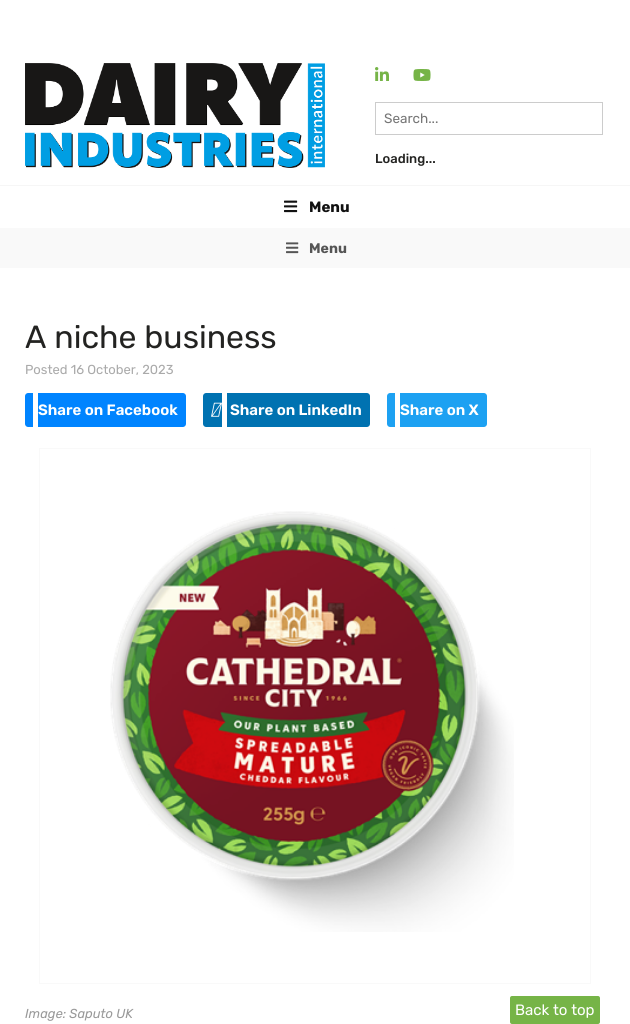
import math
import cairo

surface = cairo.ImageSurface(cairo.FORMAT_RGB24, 630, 1024)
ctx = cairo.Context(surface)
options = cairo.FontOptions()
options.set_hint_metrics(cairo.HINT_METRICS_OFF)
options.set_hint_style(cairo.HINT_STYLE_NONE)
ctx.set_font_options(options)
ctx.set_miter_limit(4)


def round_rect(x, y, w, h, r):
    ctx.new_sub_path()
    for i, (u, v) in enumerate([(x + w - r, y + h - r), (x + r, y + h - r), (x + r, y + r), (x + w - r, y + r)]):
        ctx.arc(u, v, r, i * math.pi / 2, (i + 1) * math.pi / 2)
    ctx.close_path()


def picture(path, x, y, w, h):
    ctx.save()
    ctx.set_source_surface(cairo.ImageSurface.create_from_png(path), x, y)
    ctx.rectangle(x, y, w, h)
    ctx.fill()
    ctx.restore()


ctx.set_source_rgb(1, 1, 1)
ctx.paint()
picture("img1.png", 25, 63, 300, 105)
picture("img2.png", 375, 67, 14, 14)
picture("img3.png", 413, 69, 18, 12)
ctx.rectangle(375.5, 102.5, 227, 32)
ctx.set_source_rgb(0.8, 0.8, 0.8)
ctx.set_line_width(1)
ctx.stroke()
ctx.select_font_face("Rubik")
ctx.set_font_size(13.5)
ctx.set_source_rgb(0.459, 0.459, 0.459)
ctx.move_to(384, 123)
ctx.show_text("Search...")
ctx.select_font_face("Rubik Medium")
ctx.set_font_size(13)
ctx.set_source_rgb(0.137, 0.137, 0.129)
ctx.move_to(375, 163)
ctx.show_text("Loading...")
ctx.set_source_rgb(0.961, 0.961, 0.961)
ctx.rectangle(0, 185, 630, 1)
ctx.fill()
picture("img4.png", 284, 200, 14, 13)
ctx.select_font_face("Rubik", cairo.FONT_SLANT_NORMAL, cairo.FONT_WEIGHT_BOLD)
ctx.set_font_size(15)
ctx.set_source_rgb(0.067, 0.067, 0.067)
ctx.move_to(309, 212)
ctx.show_text("Menu")
ctx.set_source_rgb(0.976, 0.976, 0.976)
ctx.rectangle(0, 228, 630, 40)
ctx.fill()
picture("img5.png", 286, 242, 13, 12)
ctx.set_font_size(14)
ctx.set_source_rgb(0.333, 0.333, 0.333)
ctx.move_to(309, 253)
ctx.show_text("Menu")
ctx.select_font_face("Rubik")
ctx.set_font_size(32)
ctx.set_source_rgb(0.137, 0.137, 0.129)
ctx.move_to(25, 348)
ctx.show_text("A niche business")
ctx.set_font_size(13)
ctx.set_source_rgb(0.667, 0.667, 0.667)
ctx.move_to(25, 374)
ctx.show_text("Posted 16 October, 2023")
ctx.set_source_rgb(0, 0.518, 1)
ctx.new_path()
ctx.move_to(38, 393)
ctx.line_to(183, 393)
ctx.curve_to(184.5, 393, 186, 394.5, 186, 396)
ctx.line_to(186, 424)
ctx.curve_to(186, 425.5, 184.5, 427, 183, 427)
ctx.line_to(38, 427)
ctx.close_path()
ctx.fill()
ctx.select_font_face("Rubik SemiBold")
ctx.set_font_size(15)
ctx.set_source_rgb(1, 1, 1)
ctx.move_to(38, 415)
ctx.show_text("Share on Facebook")
ctx.set_source_rgb(0, 0.518, 1)
ctx.new_path()
ctx.move_to(28, 393)
ctx.line_to(33, 393)
ctx.line_to(33, 427)
ctx.line_to(28, 427)
ctx.curve_to(26.5, 427, 25, 425.5, 25, 424)
ctx.line_to(25, 396)
ctx.curve_to(25, 394.5, 26.5, 393, 28, 393)
ctx.close_path()
ctx.fill()
ctx.set_source_rgb(0, 0.447, 0.694)
ctx.new_path()
ctx.move_to(206, 393)
ctx.line_to(222, 393)
ctx.line_to(222, 427)
ctx.line_to(206, 427)
ctx.curve_to(204.5, 427, 203, 425.5, 203, 424)
ctx.line_to(203, 396)
ctx.curve_to(203, 394.5, 204.5, 393, 206, 393)
ctx.close_path()
ctx.fill()
picture("img6.png", 211, 402, 11, 15)
ctx.new_path()
ctx.move_to(227, 393)
ctx.line_to(367, 393)
ctx.curve_to(368.5, 393, 370, 394.5, 370, 396)
ctx.line_to(370, 424)
ctx.curve_to(370, 425.5, 368.5, 427, 367, 427)
ctx.line_to(227, 427)
ctx.close_path()
ctx.fill()
ctx.set_source_rgb(1, 1, 1)
ctx.move_to(230, 415)
ctx.show_text("Share on LinkedIn")
ctx.set_source_rgb(0.114, 0.631, 0.949)
ctx.new_path()
ctx.move_to(400, 393)
ctx.line_to(484, 393)
ctx.curve_to(485.5, 393, 487, 394.5, 487, 396)
ctx.line_to(487, 424)
ctx.curve_to(487, 425.5, 485.5, 427, 484, 427)
ctx.line_to(400, 427)
ctx.close_path()
ctx.fill()
ctx.set_source_rgb(1, 1, 1)
ctx.move_to(400, 415)
ctx.show_text("Share on X")
ctx.set_source_rgb(0.114, 0.631, 0.949)
ctx.new_path()
ctx.move_to(390, 393)
ctx.line_to(395, 393)
ctx.line_to(395, 427)
ctx.line_to(390, 427)
ctx.curve_to(388.5, 427, 387, 425.5, 387, 424)
ctx.line_to(387, 396)
ctx.curve_to(387, 394.5, 388.5, 393, 390, 393)
ctx.close_path()
ctx.fill()
picture("img7.png", 110, 511, 404, 421)
ctx.rectangle(39.5, 448.5, 551, 535)
ctx.set_source_rgb(0.973, 0.973, 0.973)
ctx.stroke()
ctx.select_font_face("Rubik", cairo.FONT_SLANT_ITALIC)
ctx.set_font_size(13)
ctx.set_source_rgb(0.6, 0.6, 0.6)
ctx.move_to(25, 1018)
ctx.show_text("Image: Saputo UK")
ctx.set_source_rgb(0.463, 0.706, 0.278)
round_rect(510, 996, 90, 28, 2)
ctx.fill()
ctx.select_font_face("Rubik")
ctx.set_font_size(15)
ctx.set_source_rgb(1, 1, 1)
ctx.move_to(515, 1015)
ctx.show_text("Back to top")
surface.write_to_png("page.png")
